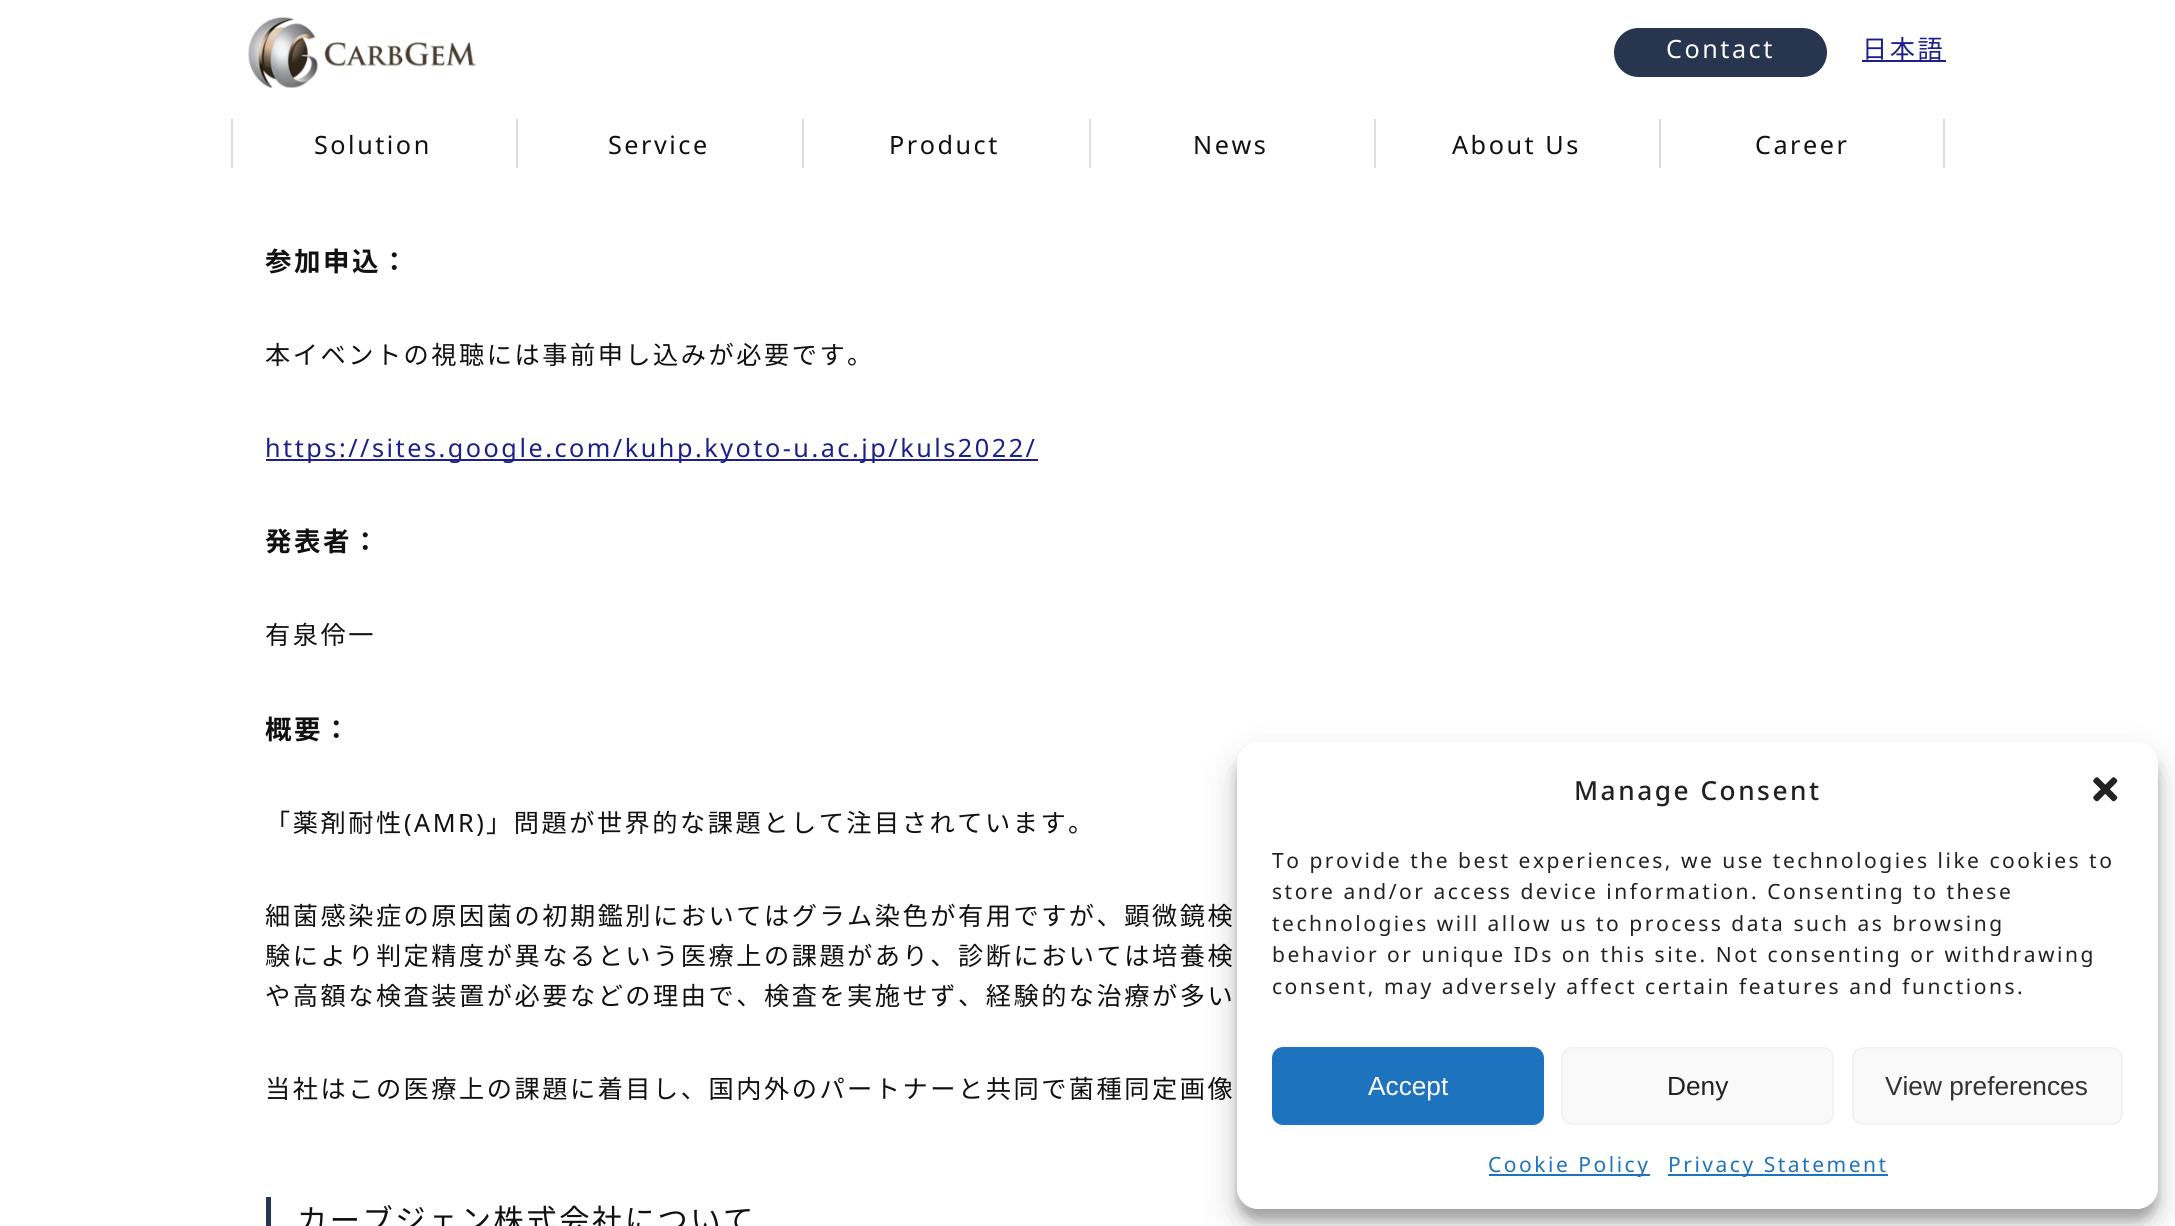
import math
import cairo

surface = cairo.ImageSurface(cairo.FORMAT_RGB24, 2175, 1226)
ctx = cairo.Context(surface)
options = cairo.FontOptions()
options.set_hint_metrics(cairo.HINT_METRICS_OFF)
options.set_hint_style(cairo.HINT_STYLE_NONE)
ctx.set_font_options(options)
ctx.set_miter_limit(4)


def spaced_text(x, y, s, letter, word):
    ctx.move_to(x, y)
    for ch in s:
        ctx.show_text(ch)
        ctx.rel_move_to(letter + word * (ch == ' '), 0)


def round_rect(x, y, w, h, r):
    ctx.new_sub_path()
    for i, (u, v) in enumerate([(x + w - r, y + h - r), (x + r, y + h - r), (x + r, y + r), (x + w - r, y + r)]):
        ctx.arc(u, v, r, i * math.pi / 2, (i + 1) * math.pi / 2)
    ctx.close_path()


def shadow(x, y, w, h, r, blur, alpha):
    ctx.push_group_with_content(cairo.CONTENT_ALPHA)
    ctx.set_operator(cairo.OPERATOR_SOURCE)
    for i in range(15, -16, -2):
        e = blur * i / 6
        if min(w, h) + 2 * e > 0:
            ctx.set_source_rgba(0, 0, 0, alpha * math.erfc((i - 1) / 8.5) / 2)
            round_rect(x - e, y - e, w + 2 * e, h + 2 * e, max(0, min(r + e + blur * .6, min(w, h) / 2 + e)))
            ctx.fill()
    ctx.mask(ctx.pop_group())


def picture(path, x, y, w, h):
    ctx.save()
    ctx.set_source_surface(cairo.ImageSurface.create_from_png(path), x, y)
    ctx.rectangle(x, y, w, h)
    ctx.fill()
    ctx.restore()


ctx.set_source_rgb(1, 1, 1)
ctx.paint()
picture("img1.png", 248, 17, 228, 71)
ctx.set_source_rgb(0.157, 0.208, 0.31)
round_rect(1614, 28, 213, 49, 24.5)
ctx.fill()
ctx.select_font_face("Noto Sans")
ctx.set_font_size(25.2)
ctx.set_source_rgb(1, 1, 1)
spaced_text(1666, 58, "Contact", 2.52, 0)
ctx.select_font_face("Noto Sans CJK JP")
ctx.set_source_rgb(0.114, 0.125, 0.537)
spaced_text(1862, 58, "日本語", 2.52, 0)
ctx.rectangle(1862, 60, 84, 2)
ctx.fill()
ctx.set_source_rgb(0.867, 0.867, 0.867)
ctx.rectangle(231, 119, 2, 49)
ctx.fill()
ctx.select_font_face("Noto Sans")
ctx.set_source_rgb(0.067, 0.067, 0.067)
spaced_text(314, 154, "Solution", 2.52, 0)
ctx.set_source_rgb(0.867, 0.867, 0.867)
ctx.rectangle(516, 119, 2, 49)
ctx.fill()
ctx.set_source_rgb(0.067, 0.067, 0.067)
spaced_text(608, 154, "Service", 2.52, 0)
ctx.set_source_rgb(0.867, 0.867, 0.867)
ctx.rectangle(802, 119, 2, 49)
ctx.fill()
ctx.set_source_rgb(0.067, 0.067, 0.067)
spaced_text(889, 154, "Product", 2.52, 0)
ctx.set_source_rgb(0.867, 0.867, 0.867)
ctx.rectangle(1089, 119, 2, 49)
ctx.fill()
ctx.set_source_rgb(0.067, 0.067, 0.067)
spaced_text(1193, 154, "News", 2.52, 0)
ctx.set_source_rgb(0.867, 0.867, 0.867)
ctx.rectangle(1374, 119, 2, 49)
ctx.fill()
ctx.set_source_rgb(0.067, 0.067, 0.067)
spaced_text(1452, 154, "About Us", 2.52, 0)
ctx.set_source_rgb(0.867, 0.867, 0.867)
ctx.rectangle(1659, 119, 2, 49)
ctx.fill()
ctx.set_source_rgb(0.067, 0.067, 0.067)
spaced_text(1755, 154, "Career", 2.52, 0)
ctx.set_source_rgb(0.867, 0.867, 0.867)
ctx.rectangle(1943, 119, 2, 49)
ctx.fill()
ctx.select_font_face("Noto Sans CJK JP", cairo.FONT_SLANT_NORMAL, cairo.FONT_WEIGHT_BOLD)
ctx.set_font_size(26.5)
ctx.set_source_rgb(0.067, 0.067, 0.067)
spaced_text(265, 271, "参加申込：", 2.52, 0)
ctx.select_font_face("Noto Sans CJK JP")
ctx.set_font_size(25.2)
spaced_text(265, 364, "本イベントの視聴には事前申し込みが必要です。", 2.52, 0)
ctx.set_source_rgb(0.114, 0.125, 0.537)
ctx.rectangle(266, 459, 772, 2)
ctx.fill()
ctx.select_font_face("Noto Sans")
spaced_text(265, 457, "https://sites.google.com/kuhp.kyoto-u.ac.jp/kuls2022/", 2.52, 0)
ctx.select_font_face("Noto Sans CJK JP", cairo.FONT_SLANT_NORMAL, cairo.FONT_WEIGHT_BOLD)
ctx.set_font_size(26.5)
ctx.set_source_rgb(0.067, 0.067, 0.067)
spaced_text(265, 551, "発表者：", 2.52, 0)
ctx.select_font_face("Noto Sans CJK JP")
ctx.set_font_size(25.2)
spaced_text(265, 644, "有泉伶一", 2.52, 0)
ctx.select_font_face("Noto Sans CJK JP", cairo.FONT_SLANT_NORMAL, cairo.FONT_WEIGHT_BOLD)
ctx.set_font_size(26.5)
spaced_text(265, 739, "概要：", 2.52, 0)
ctx.select_font_face("Noto Sans CJK JP")
ctx.set_font_size(25.2)
spaced_text(265, 832, "「薬剤耐性", 2.52, 0)
ctx.select_font_face("Noto Sans")
spaced_text(404, 832, "(AMR)", 2.52, 0)
ctx.select_font_face("Noto Sans CJK JP")
spaced_text(486, 832, "」問題が世界的な課題として注目されています。", 2.52, 0)
spaced_text(265, 925, "細菌感染症の原因菌の初期鑑別においてはグラム染色が有用ですが、顕微鏡検", 2.52, 0)
spaced_text(265, 965, "験により判定精度が異なるという医療上の課題があり、診断においては培養検", 2.52, 0)
spaced_text(265, 1005, "や高額な検査装置が必要などの理由で、検査を実施せず、経験的な治療が多い", 2.52, 0)
spaced_text(265, 1098, "当社はこの医療上の課題に着目し、国内外のパートナーと共同で菌種同定画像", 2.52, 0)
ctx.set_source_rgb(0.157, 0.208, 0.31)
ctx.rectangle(266, 1197, 5, 29)
ctx.fill()
ctx.set_font_size(30.25)
ctx.set_source_rgb(0.067, 0.067, 0.067)
spaced_text(297, 1231, "カーブジェン株式会社について", 2.52, 0)
ctx.set_source_rgb(0, 0, 0)
shadow(1237, 753, 921, 467, 21, 5, 0.23)
shadow(1237, 760, 921, 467, 21, 17.5, 0.19)
ctx.set_source_rgb(1, 1, 1)
round_rect(1237, 742, 921, 467, 21)
ctx.fill()
ctx.select_font_face("Noto Sans Medium")
ctx.set_font_size(26.25)
ctx.set_source_rgb(0.133, 0.133, 0.133)
spaced_text(1574, 800, "Manage Consent", 2.52, 0)
picture("img2.png", 2093, 777, 25, 25)
ctx.select_font_face("Noto Sans")
ctx.set_font_size(21)
spaced_text(1272, 868, "To provide the best experiences, we use technologies like cookies to", 2.52, 0)
spaced_text(1272, 899, "store and/or access device information. Consenting to these", 2.52, 0)
spaced_text(1272, 931, "technologies will allow us to process data such as browsing", 2.52, 0)
spaced_text(1272, 962, "behavior or unique IDs on this site. Not consenting or withdrawing", 2.52, 0)
spaced_text(1272, 994, "consent, may adversely affect certain features and functions.", 2.52, 0)
ctx.set_source_rgb(0.118, 0.451, 0.745)
round_rect(1273, 1048, 270, 76, 10)
ctx.fill_preserve()
ctx.stroke()
ctx.select_font_face("Liberation Sans")
ctx.set_font_size(26.25)
ctx.set_source_rgb(1, 1, 1)
ctx.move_to(1368, 1095)
ctx.show_text("Accept")
ctx.set_source_rgb(0.976, 0.976, 0.976)
round_rect(1562, 1048, 271, 76, 10)
ctx.fill_preserve()
ctx.set_source_rgb(0.949, 0.949, 0.949)
ctx.stroke()
ctx.set_source_rgb(0.133, 0.133, 0.133)
ctx.move_to(1667, 1095)
ctx.show_text("Deny")
ctx.set_source_rgb(0.976, 0.976, 0.976)
round_rect(1853, 1048, 269, 76, 10)
ctx.fill_preserve()
ctx.set_source_rgb(0.949, 0.949, 0.949)
ctx.stroke()
ctx.set_source_rgb(0.2, 0.2, 0.2)
ctx.move_to(1885, 1095)
ctx.show_text("View preferences")
ctx.set_source_rgb(0.118, 0.451, 0.745)
ctx.rectangle(1489, 1174, 161, 2)
ctx.fill()
ctx.select_font_face("Noto Sans")
ctx.set_font_size(21)
spaced_text(1488, 1172, "Cookie Policy", 2.52, 0)
ctx.rectangle(1668, 1174, 220, 2)
ctx.fill()
spaced_text(1668, 1172, "Privacy Statement", 2.52, 0)
surface.write_to_png("page.png")
